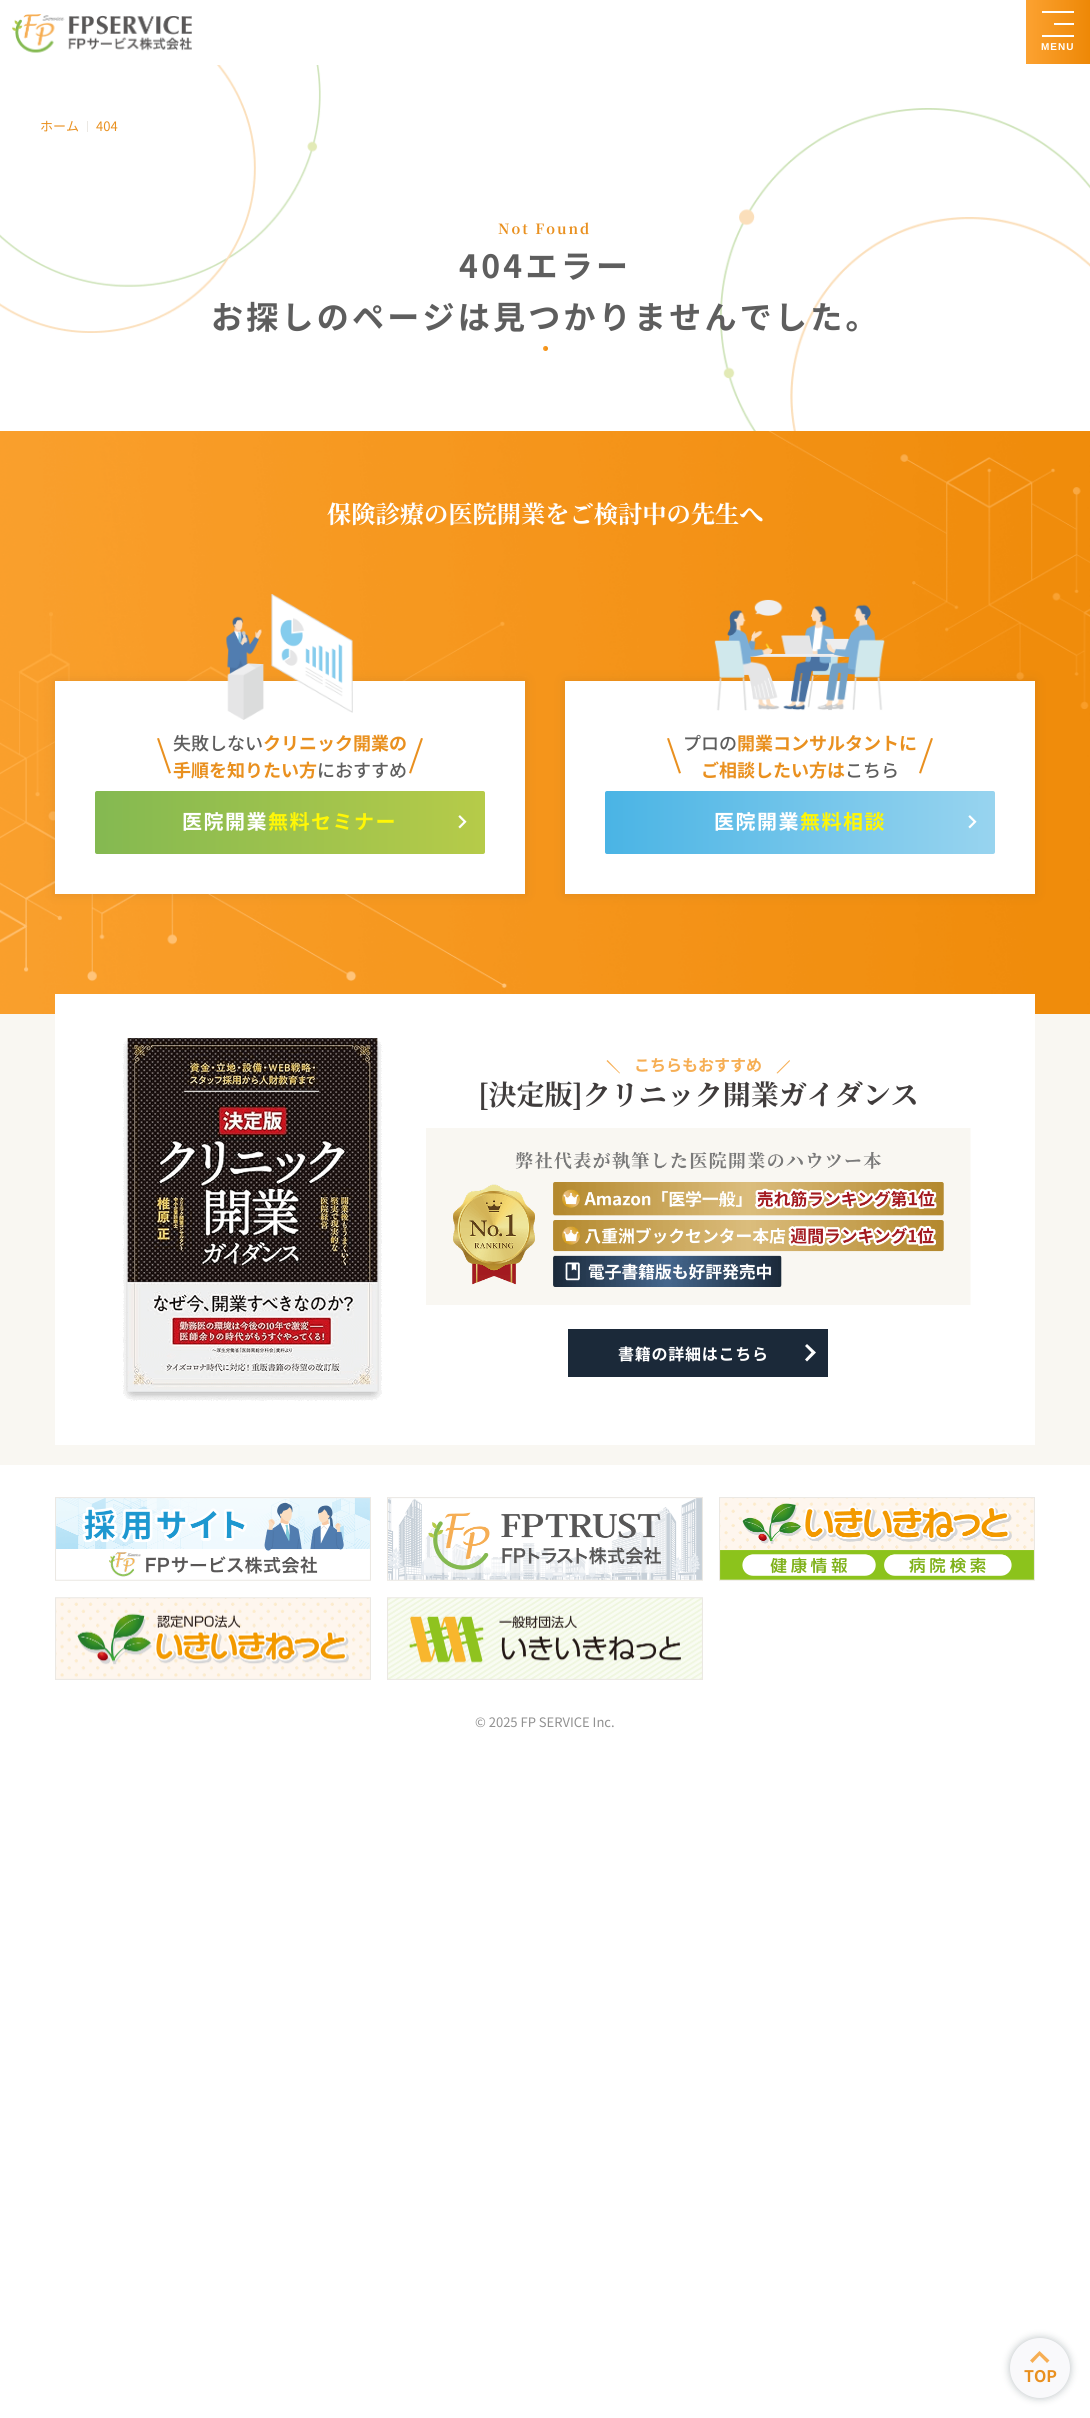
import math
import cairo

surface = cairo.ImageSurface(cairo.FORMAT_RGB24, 1090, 2418)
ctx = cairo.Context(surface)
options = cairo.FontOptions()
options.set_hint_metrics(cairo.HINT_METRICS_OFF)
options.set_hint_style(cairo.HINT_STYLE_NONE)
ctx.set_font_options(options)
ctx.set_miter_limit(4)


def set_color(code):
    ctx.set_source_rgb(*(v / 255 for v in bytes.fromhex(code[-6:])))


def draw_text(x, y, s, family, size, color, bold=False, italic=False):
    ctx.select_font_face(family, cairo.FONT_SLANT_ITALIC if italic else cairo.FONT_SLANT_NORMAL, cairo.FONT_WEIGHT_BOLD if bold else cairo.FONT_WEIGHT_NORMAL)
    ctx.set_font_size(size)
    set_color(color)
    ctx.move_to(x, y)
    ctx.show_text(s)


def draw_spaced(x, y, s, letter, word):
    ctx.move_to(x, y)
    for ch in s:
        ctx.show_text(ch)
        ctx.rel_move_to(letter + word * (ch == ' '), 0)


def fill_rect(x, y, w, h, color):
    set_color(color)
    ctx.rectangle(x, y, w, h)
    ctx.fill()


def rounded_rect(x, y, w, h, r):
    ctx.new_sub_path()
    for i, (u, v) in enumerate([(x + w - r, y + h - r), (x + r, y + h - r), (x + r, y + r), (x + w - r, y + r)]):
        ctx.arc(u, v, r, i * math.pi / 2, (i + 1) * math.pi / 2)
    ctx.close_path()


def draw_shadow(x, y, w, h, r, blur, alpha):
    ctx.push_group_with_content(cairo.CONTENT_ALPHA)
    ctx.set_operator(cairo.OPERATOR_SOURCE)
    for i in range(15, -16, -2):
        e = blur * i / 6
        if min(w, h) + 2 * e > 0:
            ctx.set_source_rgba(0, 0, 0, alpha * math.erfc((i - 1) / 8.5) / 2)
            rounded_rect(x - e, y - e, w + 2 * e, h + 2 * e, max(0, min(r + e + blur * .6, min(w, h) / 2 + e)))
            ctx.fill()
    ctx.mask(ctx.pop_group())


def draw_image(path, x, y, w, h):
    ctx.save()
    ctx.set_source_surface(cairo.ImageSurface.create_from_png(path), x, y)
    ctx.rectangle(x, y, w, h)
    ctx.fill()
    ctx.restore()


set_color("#ffffff")
ctx.paint()
draw_image("assets/img1.png", 12, 14, 180, 39)
gradient = cairo.LinearGradient(1090, 32, 1026, 32)
gradient.add_color_stop_rgba(0, 0.933, 0.533, 0.024, 1)
gradient.add_color_stop_rgba(1, 0.988, 0.635, 0.192, 1)
ctx.set_source(gradient)
ctx.rectangle(1026, 0, 64, 64)
ctx.fill()
fill_rect(1042, 11, 32, 2, "#ffffff")
fill_rect(1054, 23, 20, 2, "#ffffff")
fill_rect(1042, 35, 32, 2, "#ffffff")
ctx.select_font_face("Liberation Sans", cairo.FONT_SLANT_NORMAL, cairo.FONT_WEIGHT_BOLD)
ctx.set_font_size(10)
draw_spaced(1041, 50, "MENU", 1, 0)
draw_image("assets/img2.png", 0, 65, 321, 268)
draw_image("assets/img3.png", 720, 108, 370, 323)
draw_text(40, 131, "ホーム", "Noto Sans JP", 13, "#e9901f")
fill_rect(87, 121, 1, 11, "#ebe8e3")
draw_text(96, 131, "404", "Noto Sans JP", 13, "#e9901f")
ctx.select_font_face("Noto Serif JP", cairo.FONT_SLANT_NORMAL, cairo.FONT_WEIGHT_BOLD)
ctx.set_font_size(14)
draw_spaced(498, 234, "Not Found", 2, 0)
ctx.select_font_face("Noto Sans JP", cairo.FONT_SLANT_NORMAL, cairo.FONT_WEIGHT_BOLD)
ctx.set_font_size(32)
set_color("#5e5e5e")
draw_spaced(459, 278, "404エラー", 3.25, 0)
draw_spaced(211, 329, "お探しのページは見つかりませんでした。", 3.25, 0)
gradient = cairo.LinearGradient(548, 349, 543, 349)
gradient.add_color_stop_rgba(0, 0.933, 0.533, 0.024, 1)
gradient.add_color_stop_rgba(1, 0.988, 0.635, 0.192, 1)
ctx.set_source(gradient)
ctx.new_path()
ctx.arc(545.5, 348.5, 2.5, 0, 2 * math.pi)
ctx.fill()
draw_image("assets/img4.png", 0, 431, 1090, 583)
draw_text(327, 523, "保険診療の医院開業をご検討中の先生へ", "Noto Serif JP", 24.25, "#ffffff", bold=True)
set_color("#25252f")
draw_shadow(55, 681, 470, 213, 0, 6, 0.1)
fill_rect(55, 681, 470, 213, "#ffffff")
draw_image("assets/img5.png", 226, 594, 127, 126)
set_color("#e9901f")
ctx.new_path()
ctx.move_to(157, 738.5)
ctx.line_to(159, 738)
ctx.line_to(171, 773)
ctx.line_to(169, 773.5)
ctx.close_path()
ctx.fill()
draw_text(173, 750, "失敗しない", "Noto Sans JP Medium", 18, "#5e5e5e")
draw_text(263, 750, "クリニック開業の", "Noto Sans JP", 18, "#e9901f", bold=True)
draw_text(173, 777, "手順を知りたい方", "Noto Sans JP", 18, "#e9901f", bold=True)
draw_text(317, 777, "におすすめ", "Noto Sans JP Medium", 18, "#5e5e5e")
set_color("#e9901f")
ctx.new_path()
ctx.move_to(421, 738)
ctx.line_to(423, 738.5)
ctx.line_to(411, 773.5)
ctx.line_to(409, 773)
ctx.close_path()
ctx.fill()
gradient = cairo.LinearGradient(95, 823, 485, 823)
gradient.add_color_stop_rgba(0, 0.518, 0.725, 0.318, 1)
gradient.add_color_stop_rgba(1, 0.714, 0.796, 0.286, 1)
ctx.set_source(gradient)
rounded_rect(95, 791, 390, 63, 2)
ctx.fill()
ctx.select_font_face("Noto Sans JP", cairo.FONT_SLANT_NORMAL, cairo.FONT_WEIGHT_BOLD)
ctx.set_font_size(20)
set_color("#ffffff")
draw_spaced(182, 829, "医院開業", 1.5, 0)
set_color("#fff706")
draw_spaced(268, 829, "無料セミナー", 1.5, 0)
draw_image("assets/img6.png", 458, 815, 9, 14)
set_color("#25252f")
draw_shadow(565, 681, 470, 213, 0, 6, 0.1)
fill_rect(565, 681, 470, 213, "#ffffff")
draw_image("assets/img7.png", 714, 599, 171, 112)
set_color("#e9901f")
ctx.new_path()
ctx.move_to(667, 738.5)
ctx.line_to(669, 738)
ctx.line_to(681, 773)
ctx.line_to(679, 773.5)
ctx.close_path()
ctx.fill()
draw_text(683, 750, "プロの", "Noto Sans JP Medium", 18, "#5e5e5e")
draw_text(737, 750, "開業コンサルタントに", "Noto Sans JP", 18, "#e9901f", bold=True)
draw_text(701, 777, "ご相談したい方は", "Noto Sans JP", 18, "#e9901f", bold=True)
draw_text(845, 777, "こちら", "Noto Sans JP Medium", 18, "#5e5e5e")
set_color("#e9901f")
ctx.new_path()
ctx.move_to(931, 738)
ctx.line_to(933, 738.5)
ctx.line_to(921, 773.5)
ctx.line_to(919, 773)
ctx.close_path()
ctx.fill()
gradient = cairo.LinearGradient(995, 823, 605, 823)
gradient.add_color_stop_rgba(0, 0.596, 0.831, 0.937, 1)
gradient.add_color_stop_rgba(1, 0.29, 0.706, 0.898, 1)
ctx.set_source(gradient)
rounded_rect(605, 791, 390, 63, 2)
ctx.fill()
ctx.select_font_face("Noto Sans JP", cairo.FONT_SLANT_NORMAL, cairo.FONT_WEIGHT_BOLD)
ctx.set_font_size(20)
set_color("#ffffff")
draw_spaced(714, 829, "医院開業", 1.5, 0)
set_color("#fff706")
draw_spaced(800, 829, "無料相談", 1.5, 0)
draw_image("assets/img8.png", 968, 815, 9, 14)
fill_rect(0, 1014, 1090, 451, "#f9f7f2")
fill_rect(55, 994, 980, 451, "#ffffff")
draw_image("assets/img9.png", 122, 1038, 261, 363)
set_color("#f6ae54")
ctx.new_path()
ctx.move_to(607.5, 1060)
ctx.line_to(620, 1073)
ctx.line_to(619.5, 1073.5)
ctx.line_to(606.5, 1061)
ctx.close_path()
ctx.fill()
draw_text(634, 1071, "こちらもおすすめ", "Noto Sans JP", 16, "#f6ae54", bold=True)
ctx.new_path()
ctx.move_to(776.5, 1073)
ctx.line_to(789.5, 1060)
ctx.line_to(790, 1061)
ctx.line_to(777.5, 1073.5)
ctx.close_path()
ctx.fill()
draw_text(478, 1105, "[決定版]クリニック開業ガイダンス", "Noto Serif JP", 28, "#403c3c", bold=True)
draw_image("assets/img10.png", 426, 1128, 545, 177)
fill_rect(568, 1329, 260, 48, "#1b2939")
ctx.select_font_face("Noto Sans JP", cairo.FONT_SLANT_NORMAL, cairo.FONT_WEIGHT_BOLD)
ctx.set_font_size(16)
set_color("#ffffff")
draw_spaced(618, 1360, "書籍の詳細はこちら", 0.75, 0)
ctx.new_path()
ctx.move_to(811.5, 1352.5)
ctx.line_to(805, 1346)
ctx.line_to(807, 1344)
ctx.line_to(816, 1352.5)
ctx.line_to(807, 1361.5)
ctx.line_to(805, 1359.5)
ctx.close_path()
ctx.fill()
draw_image("assets/img11.png", 55, 1497, 316, 84)
draw_image("assets/img12.png", 387, 1497, 316, 84)
draw_image("assets/img13.png", 719, 1497, 316, 84)
draw_image("assets/img14.png", 55, 1597, 316, 83)
draw_image("assets/img15.png", 387, 1597, 316, 83)
draw_text(475, 1727, "© 2025 FP SERVICE Inc.", "Noto Sans JP", 13, "#919191")
set_color("#899497")
draw_shadow(1010, 2338, 60, 60, 30, 4, 0.6)
set_color("#f9f9fb")
ctx.arc(1040, 2368, 30, 0, 2 * math.pi)
ctx.fill()
set_color("#f6ae54")
ctx.new_path()
ctx.move_to(1039.5, 2355.5)
ctx.line_to(1032.5, 2363)
ctx.line_to(1030, 2360.5)
ctx.line_to(1039.5, 2351)
ctx.line_to(1049.5, 2360.5)
ctx.line_to(1047, 2363)
ctx.close_path()
ctx.fill()
draw_text(1024, 2382, "TOP", "Noto Sans JP", 16, "#e9901f", bold=True)
surface.write_to_png("output.png")
